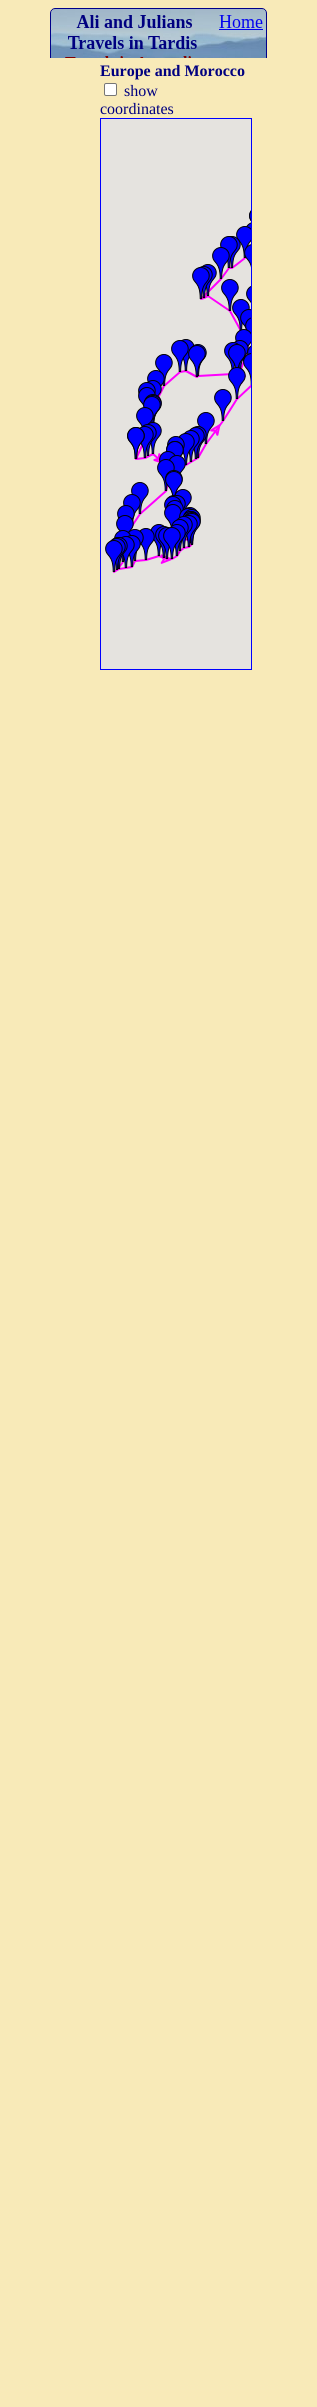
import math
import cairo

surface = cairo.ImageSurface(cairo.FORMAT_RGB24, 317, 2407)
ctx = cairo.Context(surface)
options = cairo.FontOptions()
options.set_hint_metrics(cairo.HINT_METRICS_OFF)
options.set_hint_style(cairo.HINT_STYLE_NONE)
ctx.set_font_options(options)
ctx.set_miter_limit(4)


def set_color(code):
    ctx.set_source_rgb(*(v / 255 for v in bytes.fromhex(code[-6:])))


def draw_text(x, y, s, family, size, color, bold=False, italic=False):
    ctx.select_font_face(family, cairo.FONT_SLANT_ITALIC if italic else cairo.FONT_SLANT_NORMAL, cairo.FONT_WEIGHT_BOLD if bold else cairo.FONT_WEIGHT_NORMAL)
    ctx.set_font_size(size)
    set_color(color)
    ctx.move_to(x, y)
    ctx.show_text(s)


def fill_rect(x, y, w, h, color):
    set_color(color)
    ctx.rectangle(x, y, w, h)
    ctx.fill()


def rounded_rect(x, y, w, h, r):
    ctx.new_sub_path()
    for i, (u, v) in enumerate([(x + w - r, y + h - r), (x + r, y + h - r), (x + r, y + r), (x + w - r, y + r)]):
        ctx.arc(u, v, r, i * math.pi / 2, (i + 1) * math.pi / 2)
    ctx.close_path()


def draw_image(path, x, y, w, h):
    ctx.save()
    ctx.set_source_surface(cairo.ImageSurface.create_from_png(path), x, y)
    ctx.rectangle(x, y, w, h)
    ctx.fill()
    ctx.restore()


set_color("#f8eab8")
ctx.paint()
draw_image("assets/img1.png", 50, 8, 217, 50)
draw_text(100, 76, "Europe and Morocco", "Liberation Serif", 16, "#000080", bold=True)
set_color("#ffffff")
rounded_rect(104.5, 83.5, 12, 12, 1.5)
ctx.fill_preserve()
set_color("#767676")
ctx.set_line_width(1)
ctx.stroke()
draw_text(124, 96, "show", "Liberation Serif", 16, "#000080")
draw_text(100, 114, "coordinates", "Liberation Serif", 16, "#000080")
ctx.rectangle(100.5, 118.5, 151, 551)
set_color("#0000ff")
ctx.stroke()
fill_rect(101, 119, 150, 550, "#e5e3df")
draw_image("assets/img2.png", 249, 210, 2, 11)
draw_image("assets/img3.png", 249, 210, 2, 11)
draw_image("assets/img4.png", 246, 222, 5, 20)
draw_image("assets/img92.png", 237, 255, 14, 146)
draw_image("assets/img6.png", 236, 226, 15, 32)
draw_image("assets/img91.png", 157, 263, 80, 140)
draw_image("assets/img9.png", 228, 236, 13, 32)
draw_image("assets/img5.png", 220, 236, 18, 32)
draw_image("assets/img8.png", 212, 247, 18, 32)
draw_image("assets/img7.png", 200, 264, 17, 32)
draw_image("assets/img10.png", 244, 244, 7, 24)
draw_image("assets/img11.png", 196, 266, 17, 32)
draw_image("assets/img12.png", 192, 267, 18, 32)
draw_image("assets/img13.png", 221, 279, 18, 32)
draw_image("assets/img14.png", 246, 286, 5, 18)
draw_image("assets/img15.png", 232, 299, 18, 32)
draw_image("assets/img16.png", 240, 309, 11, 23)
draw_image("assets/img17.png", 245, 317, 6, 17)
draw_image("assets/img18.png", 180, 339, 15, 32)
draw_image("assets/img19.png", 235, 329, 16, 32)
draw_image("assets/img20.png", 171, 340, 18, 32)
draw_image("assets/img21.png", 233, 340, 16, 30)
draw_image("assets/img22.png", 189, 344, 18, 32)
draw_image("assets/img23.png", 224, 342, 17, 28)
draw_image("assets/img24.png", 188, 345, 18, 32)
draw_image("assets/img25.png", 228, 344, 18, 24)
draw_image("assets/img26.png", 247, 345, 4, 11)
draw_image("assets/img27.png", 155, 354, 18, 32)
draw_image("assets/img29.png", 243, 353, 8, 32)
draw_image("assets/img28.png", 228, 367, 18, 32)
draw_image("assets/img30.png", 147, 370, 18, 27)
draw_image("assets/img31.png", 146, 380, 16, 17)
draw_image("assets/img32.png", 138, 382, 18, 13)
draw_image("assets/img93.png", 113, 403, 123, 170)
draw_image("assets/img33.png", 138, 387, 18, 21)
draw_image("assets/img34.png", 214, 389, 18, 32)
draw_image("assets/img35.png", 144, 394, 18, 29)
draw_image("assets/img36.png", 144, 395, 18, 28)
draw_image("assets/img37.png", 143, 396, 18, 27)
draw_image("assets/img38.png", 136, 407, 18, 20)
draw_image("assets/img39.png", 197, 412, 18, 32)
draw_image("assets/img40.png", 146, 422, 16, 32)
draw_image("assets/img41.png", 140, 424, 17, 32)
draw_image("assets/img43.png", 138, 426, 16, 32)
draw_image("assets/img42.png", 127, 427, 18, 32)
draw_image("assets/img44.png", 190, 426, 17, 32)
draw_image("assets/img45.png", 127, 427, 18, 32)
draw_image("assets/img46.png", 188, 427, 17, 32)
draw_image("assets/img47.png", 183, 430, 17, 32)
draw_image("assets/img49.png", 178, 433, 17, 32)
draw_image("assets/img48.png", 167, 436, 18, 16)
draw_image("assets/img50.png", 166, 441, 18, 16)
draw_image("assets/img51.png", 166, 441, 18, 16)
draw_image("assets/img52.png", 159, 451, 17, 13)
draw_image("assets/img53.png", 168, 455, 18, 32)
draw_image("assets/img54.png", 157, 459, 18, 32)
draw_image("assets/img55.png", 165, 470, 18, 26)
draw_image("assets/img56.png", 131, 482, 18, 32)
draw_image("assets/img57.png", 165, 471, 18, 25)
draw_image("assets/img58.png", 123, 494, 18, 32)
draw_image("assets/img60.png", 174, 489, 18, 22)
draw_image("assets/img59.png", 165, 495, 15, 13)
draw_image("assets/img61.png", 171, 495, 15, 25)
draw_image("assets/img62.png", 164, 496, 18, 31)
draw_image("assets/img63.png", 166, 500, 18, 20)
draw_image("assets/img64.png", 117, 505, 18, 16)
draw_image("assets/img65.png", 164, 504, 18, 24)
draw_image("assets/img66.png", 181, 507, 18, 32)
draw_image("assets/img67.png", 179, 508, 16, 32)
draw_image("assets/img68.png", 183, 509, 18, 32)
draw_image("assets/img69.png", 182, 511, 18, 32)
draw_image("assets/img70.png", 182, 511, 18, 32)
draw_image("assets/img71.png", 184, 512, 17, 32)
draw_image("assets/img72.png", 116, 515, 18, 18)
draw_image("assets/img73.png", 184, 513, 17, 32)
draw_image("assets/img74.png", 183, 515, 15, 32)
draw_image("assets/img75.png", 175, 516, 18, 32)
draw_image("assets/img76.png", 150, 524, 17, 32)
draw_image("assets/img77.png", 171, 519, 18, 32)
draw_image("assets/img79.png", 169, 524, 17, 32)
draw_image("assets/img78.png", 155, 526, 15, 32)
draw_image("assets/img80.png", 158, 527, 13, 32)
draw_image("assets/img83.png", 139, 528, 16, 32)
draw_image("assets/img82.png", 127, 529, 17, 32)
draw_image("assets/img81.png", 114, 530, 18, 32)
draw_image("assets/img84.png", 163, 527, 18, 32)
draw_image("assets/img85.png", 126, 535, 15, 32)
draw_image("assets/img87.png", 120, 536, 15, 32)
draw_image("assets/img86.png", 109, 537, 18, 32)
draw_image("assets/img88.png", 111, 537, 17, 32)
draw_image("assets/img89.png", 109, 538, 17, 32)
draw_image("assets/img90.png", 105, 540, 18, 32)
surface.write_to_png("output.png")
